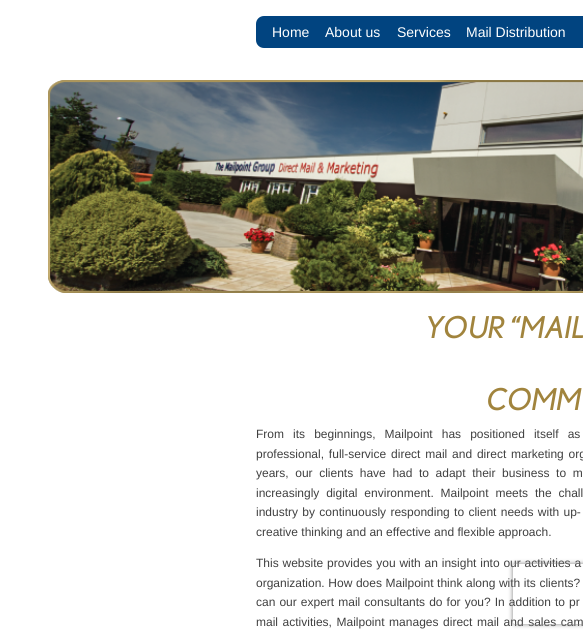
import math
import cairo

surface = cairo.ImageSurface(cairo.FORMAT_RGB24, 583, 638)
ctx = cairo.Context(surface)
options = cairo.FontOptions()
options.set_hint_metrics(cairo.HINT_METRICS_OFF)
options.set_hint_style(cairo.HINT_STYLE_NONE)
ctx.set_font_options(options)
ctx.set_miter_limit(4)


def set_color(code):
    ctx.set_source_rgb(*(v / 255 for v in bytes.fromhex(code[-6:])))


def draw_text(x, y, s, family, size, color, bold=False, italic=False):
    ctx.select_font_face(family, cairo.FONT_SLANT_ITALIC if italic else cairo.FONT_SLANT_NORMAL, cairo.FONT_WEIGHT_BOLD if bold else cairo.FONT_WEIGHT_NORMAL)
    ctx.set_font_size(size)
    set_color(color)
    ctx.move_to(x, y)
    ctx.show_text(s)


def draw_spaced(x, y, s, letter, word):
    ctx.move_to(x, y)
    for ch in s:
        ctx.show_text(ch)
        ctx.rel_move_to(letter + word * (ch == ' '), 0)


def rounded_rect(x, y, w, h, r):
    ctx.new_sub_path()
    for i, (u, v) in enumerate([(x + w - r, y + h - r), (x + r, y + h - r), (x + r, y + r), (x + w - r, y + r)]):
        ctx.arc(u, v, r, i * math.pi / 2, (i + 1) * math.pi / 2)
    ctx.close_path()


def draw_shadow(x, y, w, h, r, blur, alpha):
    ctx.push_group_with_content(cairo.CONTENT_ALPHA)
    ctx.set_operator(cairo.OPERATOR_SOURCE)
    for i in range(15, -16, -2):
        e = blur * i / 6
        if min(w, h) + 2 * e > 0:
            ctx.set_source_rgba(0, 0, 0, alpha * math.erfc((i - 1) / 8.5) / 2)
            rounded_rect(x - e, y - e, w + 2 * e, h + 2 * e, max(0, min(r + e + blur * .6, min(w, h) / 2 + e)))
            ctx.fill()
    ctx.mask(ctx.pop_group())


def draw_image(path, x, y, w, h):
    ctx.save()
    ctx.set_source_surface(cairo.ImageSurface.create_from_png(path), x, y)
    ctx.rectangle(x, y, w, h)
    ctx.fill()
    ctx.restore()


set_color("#ffffff")
ctx.paint()
set_color("#014480")
ctx.new_path()
ctx.move_to(264, 16)
ctx.line_to(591, 16)
ctx.line_to(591, 48)
ctx.line_to(264, 48)
ctx.curve_to(259.5, 48, 256, 44.5, 256, 40)
ctx.line_to(256, 24)
ctx.curve_to(256, 19.5, 259.5, 16, 264, 16)
ctx.close_path()
ctx.fill()
draw_text(272, 37, "Home", "Liberation Sans", 14, "#ffffff")
draw_text(325, 37, "About us", "Liberation Sans", 14, "#ffffff")
draw_text(397, 37, "Services", "Liberation Sans", 14, "#ffffff")
draw_text(466, 37, "Mail Distribution", "Liberation Sans", 14, "#ffffff")
draw_image("assets/img1.png", 48, 80, 535, 213)
draw_text(426, 338, "YOUR “MAIL", "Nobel", 30, "#a1843d", italic=True)
draw_text(487, 410, "COMM", "Nobel", 30, "#a1843d", italic=True)
ctx.select_font_face("Liberation Sans")
ctx.set_font_size(12)
set_color("#404040")
draw_spaced(256, 438, "From its beginnings, Mailpoint has positioned itself as", 0, 5.75)
draw_spaced(256, 458, "professional, full-service direct mail and direct marketing org", 0, 1.5)
draw_spaced(256, 477, "years, our clients have had to adapt their business to m", 0, 3.25)
draw_spaced(256, 497, "increasingly digital environment. Mailpoint meets the chall", 0, 3.5)
draw_spaced(256, 516, "industry by continuously responding to client needs with up-", 0, 1)
draw_text(256, 536, "creative thinking and an effective and flexible approach.", "Liberation Sans", 12, "#404040")
draw_spaced(256, 567, "This website provides you with an insight into our activities a", 0, 0.5)
draw_spaced(256, 587, "organization. How does Mailpoint think along with its clients?", 0, 0.25)
draw_spaced(256, 606, "can our expert mail consultants do for you? In addition to pr", 0, 0.75)
draw_spaced(256, 626, "mail activities, Mailpoint manages direct mail and sales cam", 0, 1.25)
ctx.save()
ctx.set_fill_rule(cairo.FILL_RULE_EVEN_ODD)
ctx.new_path()
ctx.move_to(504, 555)
ctx.line_to(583, 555)
ctx.line_to(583, 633)
ctx.line_to(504, 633)
ctx.close_path()
ctx.move_to(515, 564)
ctx.line_to(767, 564)
ctx.curve_to(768, 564, 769, 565, 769, 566)
ctx.line_to(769, 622)
ctx.curve_to(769, 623, 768, 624, 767, 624)
ctx.line_to(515, 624)
ctx.curve_to(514, 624, 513, 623, 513, 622)
ctx.line_to(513, 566)
ctx.curve_to(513, 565, 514, 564, 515, 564)
ctx.close_path()
ctx.clip()
set_color("#808080")
draw_shadow(513, 564, 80, 60, 2, 2.5, 1)
ctx.restore()
surface.write_to_png("output.png")
